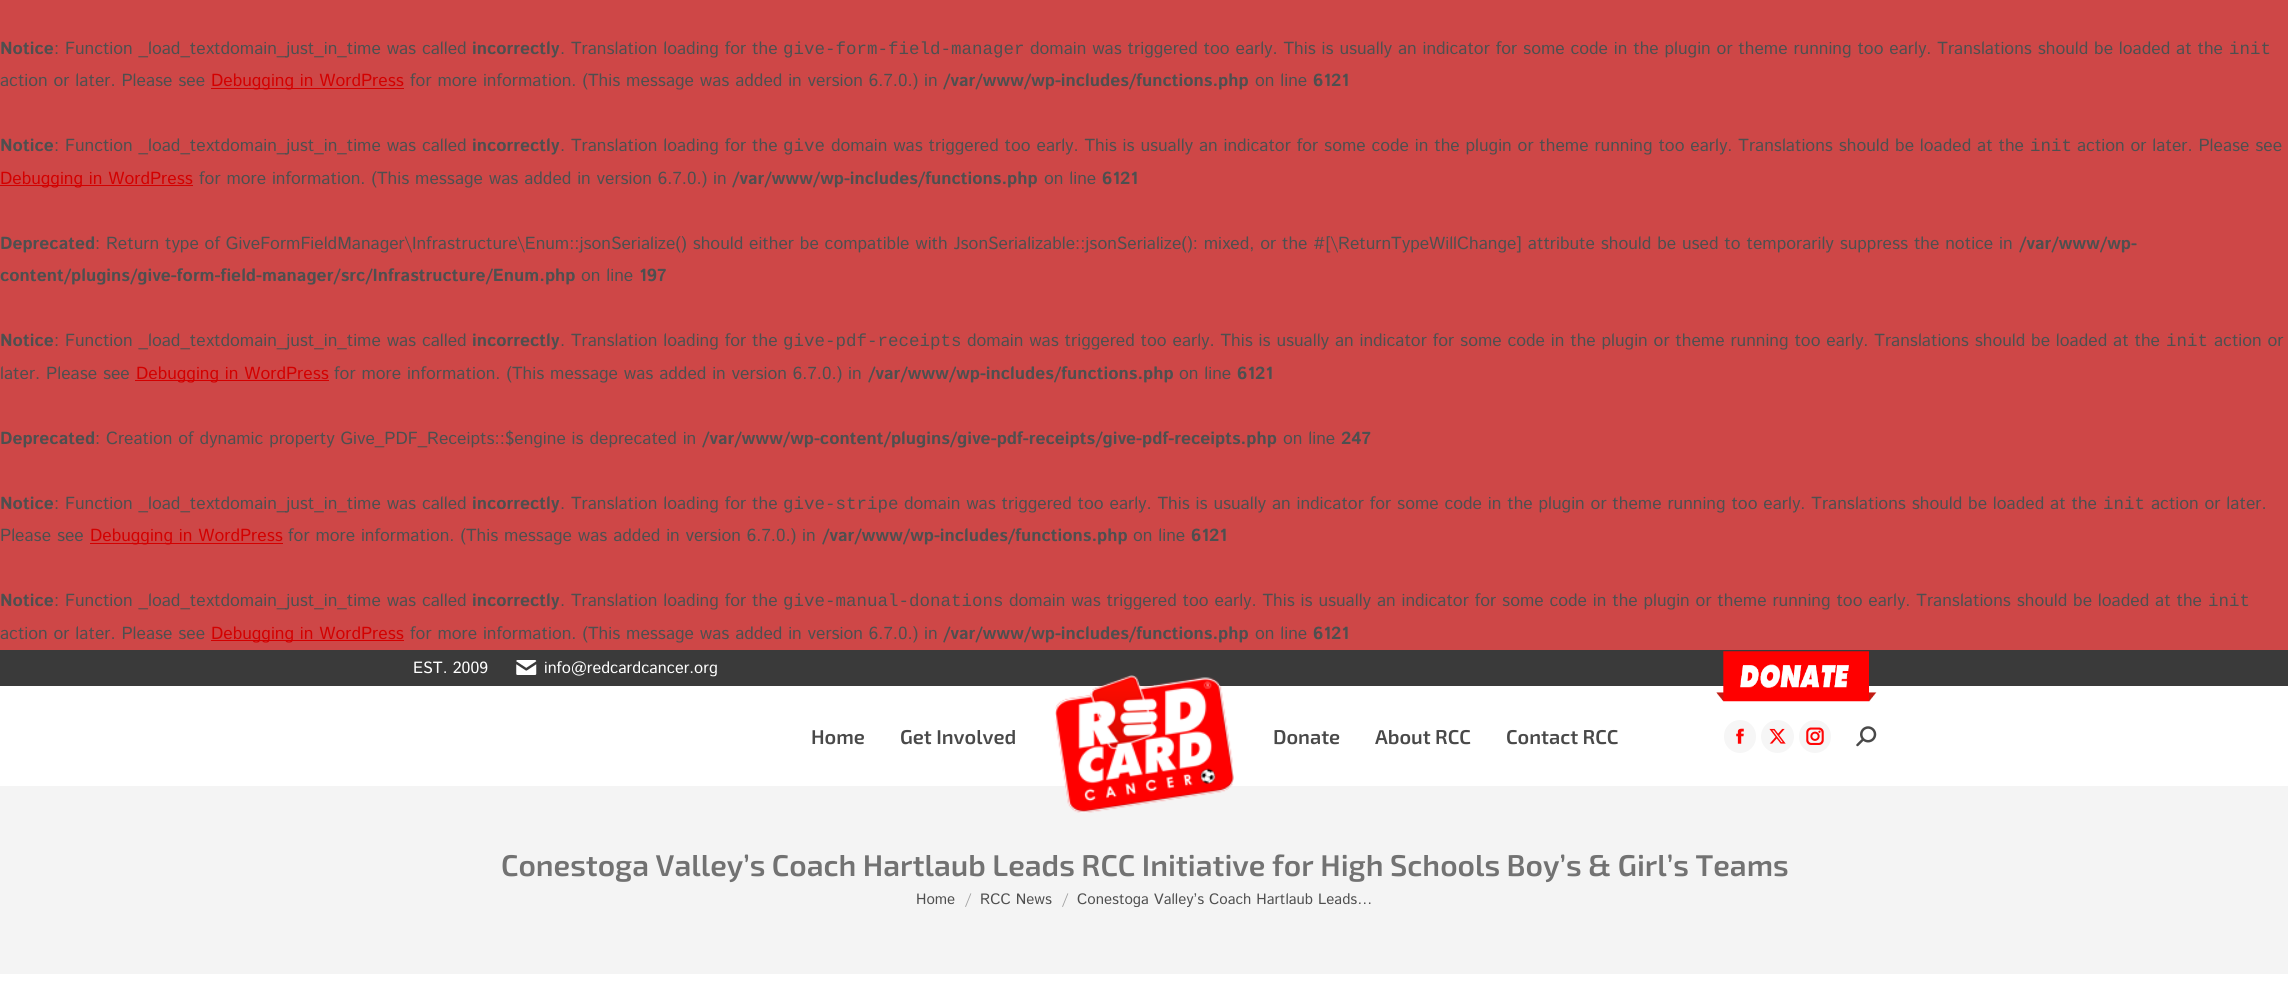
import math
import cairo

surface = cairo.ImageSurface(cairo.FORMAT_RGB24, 2288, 995)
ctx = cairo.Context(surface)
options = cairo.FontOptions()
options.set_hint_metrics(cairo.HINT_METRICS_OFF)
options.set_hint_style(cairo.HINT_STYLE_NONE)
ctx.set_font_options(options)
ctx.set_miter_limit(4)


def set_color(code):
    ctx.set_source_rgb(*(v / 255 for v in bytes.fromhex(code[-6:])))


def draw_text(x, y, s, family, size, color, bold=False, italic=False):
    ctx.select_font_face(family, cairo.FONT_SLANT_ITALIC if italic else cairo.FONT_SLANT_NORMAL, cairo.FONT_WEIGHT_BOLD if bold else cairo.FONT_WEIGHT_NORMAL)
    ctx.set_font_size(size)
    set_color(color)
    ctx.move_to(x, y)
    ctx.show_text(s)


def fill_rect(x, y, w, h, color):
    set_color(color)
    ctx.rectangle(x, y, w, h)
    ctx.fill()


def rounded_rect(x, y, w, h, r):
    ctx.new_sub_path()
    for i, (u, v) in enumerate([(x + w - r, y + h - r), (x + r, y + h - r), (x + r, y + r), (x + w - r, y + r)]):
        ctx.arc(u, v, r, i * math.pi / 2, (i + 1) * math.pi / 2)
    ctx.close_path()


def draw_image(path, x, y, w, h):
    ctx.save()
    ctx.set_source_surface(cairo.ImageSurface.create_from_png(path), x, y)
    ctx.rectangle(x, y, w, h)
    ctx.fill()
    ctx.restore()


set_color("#ce4747")
ctx.paint()
draw_text(0, 54, "Notice", "Istok Web", 17.5, "#4f4f4f", bold=True)
draw_text(54, 54, ": Function _load_textdomain_just_in_time was called", "Istok Web", 17.5, "#4f4f4f")
draw_text(472, 54, "incorrectly", "Istok Web", 17.5, "#4f4f4f", bold=True)
draw_text(560, 54, ". Translation loading for the", "Istok Web", 17.5, "#4f4f4f")
draw_text(783, 54, "give-form-field-manager", "Liberation Mono", 17.5, "#4f4f4f")
draw_text(1030, 54, "domain was triggered too early. This is usually an indicator for some code in the plugin or theme running too early. Translations should be loaded at the", "Istok Web", 17.5, "#4f4f4f")
draw_text(2229, 54, "init", "Liberation Mono", 17.5, "#4f4f4f")
draw_text(0, 86, "action or later. Please see", "Istok Web", 17.5, "#4f4f4f")
fill_rect(211, 88, 193, 1, "#d30000")
draw_text(211, 86, "Debugging in WordPress", "Istok Web", 17.5, "#d30000")
draw_text(410, 86, "for more information. (This message was added in version 6.7.0.) in", "Istok Web", 17.5, "#4f4f4f")
draw_text(943, 86, "/var/www/wp-includes/functions.php", "Istok Web", 17.5, "#4f4f4f", bold=True)
draw_text(1255, 86, "on line", "Istok Web", 17.5, "#4f4f4f")
draw_text(1313, 86, "6121", "Istok Web", 17.5, "#4f4f4f", bold=True)
draw_text(0, 151, "Notice", "Istok Web", 17.5, "#4f4f4f", bold=True)
draw_text(54, 151, ": Function _load_textdomain_just_in_time was called", "Istok Web", 17.5, "#4f4f4f")
draw_text(472, 151, "incorrectly", "Istok Web", 17.5, "#4f4f4f", bold=True)
draw_text(560, 151, ". Translation loading for the", "Istok Web", 17.5, "#4f4f4f")
draw_text(783, 151, "give", "Liberation Mono", 17.5, "#4f4f4f")
draw_text(831, 151, "domain was triggered too early. This is usually an indicator for some code in the plugin or theme running too early. Translations should be loaded at the", "Istok Web", 17.5, "#4f4f4f")
draw_text(2030, 151, "init", "Liberation Mono", 17.5, "#4f4f4f")
draw_text(2077, 151, "action or later. Please see", "Istok Web", 17.5, "#4f4f4f")
fill_rect(0, 185, 193, 1, "#d30000")
draw_text(0, 184, "Debugging in WordPress", "Istok Web", 17.5, "#d30000")
draw_text(199, 184, "for more information. (This message was added in version 6.7.0.) in", "Istok Web", 17.5, "#4f4f4f")
draw_text(732, 184, "/var/www/wp-includes/functions.php", "Istok Web", 17.5, "#4f4f4f", bold=True)
draw_text(1044, 184, "on line", "Istok Web", 17.5, "#4f4f4f")
draw_text(1102, 184, "6121", "Istok Web", 17.5, "#4f4f4f", bold=True)
draw_text(0, 249, "Deprecated", "Istok Web", 17.5, "#4f4f4f", bold=True)
draw_text(95, 249, ": Return type of GiveFormFieldManager\\Infrastructure\\Enum::jsonSerialize() should either be compatible with JsonSerializable::jsonSerialize(): mixed, or the #[\\ReturnTypeWillChange] attribute should be used to temporarily suppress the notice in", "Istok Web", 17.5, "#4f4f4f")
draw_text(2019, 249, "/var/www/wp-", "Istok Web", 17.5, "#4f4f4f", bold=True)
draw_text(0, 281, "content/plugins/give-form-field-manager/src/Infrastructure/Enum.php", "Istok Web", 17.5, "#4f4f4f", bold=True)
draw_text(581, 281, "on line", "Istok Web", 17.5, "#4f4f4f")
draw_text(639, 281, "197", "Istok Web", 17.5, "#4f4f4f", bold=True)
draw_text(0, 346, "Notice", "Istok Web", 17.5, "#4f4f4f", bold=True)
draw_text(54, 346, ": Function _load_textdomain_just_in_time was called", "Istok Web", 17.5, "#4f4f4f")
draw_text(472, 346, "incorrectly", "Istok Web", 17.5, "#4f4f4f", bold=True)
draw_text(560, 346, ". Translation loading for the", "Istok Web", 17.5, "#4f4f4f")
draw_text(783, 346, "give-pdf-receipts", "Liberation Mono", 17.5, "#4f4f4f")
draw_text(967, 346, "domain was triggered too early. This is usually an indicator for some code in the plugin or theme running too early. Translations should be loaded at the", "Istok Web", 17.5, "#4f4f4f")
draw_text(2166, 346, "init", "Liberation Mono", 17.5, "#4f4f4f")
draw_text(2214, 346, "action or", "Istok Web", 17.5, "#4f4f4f")
draw_text(0, 379, "later. Please see", "Istok Web", 17.5, "#4f4f4f")
fill_rect(135, 380, 194, 1, "#d30000")
draw_text(136, 379, "Debugging in WordPress", "Istok Web", 17.5, "#d30000")
draw_text(334, 379, "for more information. (This message was added in version 6.7.0.) in", "Istok Web", 17.5, "#4f4f4f")
draw_text(868, 379, "/var/www/wp-includes/functions.php", "Istok Web", 17.5, "#4f4f4f", bold=True)
draw_text(1179, 379, "on line", "Istok Web", 17.5, "#4f4f4f")
draw_text(1237, 379, "6121", "Istok Web", 17.5, "#4f4f4f", bold=True)
draw_text(0, 444, "Deprecated", "Istok Web", 17.5, "#4f4f4f", bold=True)
draw_text(95, 444, ": Creation of dynamic property Give_PDF_Receipts::$engine is deprecated in", "Istok Web", 17.5, "#4f4f4f")
draw_text(702, 444, "/var/www/wp-content/plugins/give-pdf-receipts/give-pdf-receipts.php", "Istok Web", 17.5, "#4f4f4f", bold=True)
draw_text(1283, 444, "on line", "Istok Web", 17.5, "#4f4f4f")
draw_text(1341, 444, "247", "Istok Web", 17.5, "#4f4f4f", bold=True)
draw_text(0, 509, "Notice", "Istok Web", 17.5, "#4f4f4f", bold=True)
draw_text(54, 509, ": Function _load_textdomain_just_in_time was called", "Istok Web", 17.5, "#4f4f4f")
draw_text(472, 509, "incorrectly", "Istok Web", 17.5, "#4f4f4f", bold=True)
draw_text(560, 509, ". Translation loading for the", "Istok Web", 17.5, "#4f4f4f")
draw_text(783, 509, "give-stripe", "Liberation Mono", 17.5, "#4f4f4f")
draw_text(904, 509, "domain was triggered too early. This is usually an indicator for some code in the plugin or theme running too early. Translations should be loaded at the", "Istok Web", 17.5, "#4f4f4f")
draw_text(2103, 509, "init", "Liberation Mono", 17.5, "#4f4f4f")
draw_text(2151, 509, "action or later.", "Istok Web", 17.5, "#4f4f4f")
draw_text(0, 541, "Please see", "Istok Web", 17.5, "#4f4f4f")
fill_rect(90, 543, 193, 1, "#d30000")
draw_text(90, 541, "Debugging in WordPress", "Istok Web", 17.5, "#d30000")
draw_text(288, 541, "for more information. (This message was added in version 6.7.0.) in", "Istok Web", 17.5, "#4f4f4f")
draw_text(822, 541, "/var/www/wp-includes/functions.php", "Istok Web", 17.5, "#4f4f4f", bold=True)
draw_text(1133, 541, "on line", "Istok Web", 17.5, "#4f4f4f")
draw_text(1191, 541, "6121", "Istok Web", 17.5, "#4f4f4f", bold=True)
draw_text(0, 606, "Notice", "Istok Web", 17.5, "#4f4f4f", bold=True)
draw_text(54, 606, ": Function _load_textdomain_just_in_time was called", "Istok Web", 17.5, "#4f4f4f")
draw_text(472, 606, "incorrectly", "Istok Web", 17.5, "#4f4f4f", bold=True)
draw_text(560, 606, ". Translation loading for the", "Istok Web", 17.5, "#4f4f4f")
draw_text(783, 606, "give-manual-donations", "Liberation Mono", 17.5, "#4f4f4f")
draw_text(1009, 606, "domain was triggered too early. This is usually an indicator for some code in the plugin or theme running too early. Translations should be loaded at the", "Istok Web", 17.5, "#4f4f4f")
draw_text(2208, 606, "init", "Liberation Mono", 17.5, "#4f4f4f")
draw_text(0, 639, "action or later. Please see", "Istok Web", 17.5, "#4f4f4f")
fill_rect(211, 640, 193, 1, "#d30000")
draw_text(211, 639, "Debugging in WordPress", "Istok Web", 17.5, "#d30000")
draw_text(410, 639, "for more information. (This message was added in version 6.7.0.) in", "Istok Web", 17.5, "#4f4f4f")
draw_text(943, 639, "/var/www/wp-includes/functions.php", "Istok Web", 17.5, "#4f4f4f", bold=True)
draw_text(1255, 639, "on line", "Istok Web", 17.5, "#4f4f4f")
draw_text(1313, 639, "6121", "Istok Web", 17.5, "#4f4f4f", bold=True)
fill_rect(0, 686, 2288, 309, "#ffffff")
fill_rect(0, 650, 2288, 36, "#3a3a3a")
draw_text(413, 673, "EST. 2009", "Istok Web", 16.25, "#ffffff")
draw_image("assets/img1.png", 516, 660, 21, 15)
draw_text(544, 673, "info@redcardcancer.org", "Istok Web", 16.25, "#ffffff")
draw_image("assets/img2.png", 1716, 651, 161, 51)
draw_text(811, 744, "Home", "Exo 2 SemiBold", 20, "#494949")
draw_text(900, 744, "Get Involved", "Exo 2 SemiBold", 20, "#494949")
fill_rect(0, 786, 2288, 188, "#f4f4f4")
draw_image("assets/img3.png", 1055, 675, 179, 138)
draw_text(1273, 744, "Donate", "Exo 2 SemiBold", 20, "#494949")
draw_text(1375, 744, "About RCC", "Exo 2 SemiBold", 20, "#494949")
draw_text(1506, 744, "Contact RCC", "Exo 2 SemiBold", 20, "#494949")
set_color("#f6f6f6")
rounded_rect(1724, 720, 32, 33, 16)
ctx.fill()
draw_image("assets/img4.png", 1736, 728, 8, 16)
ctx.arc(1777.5, 736.5, 16.5, 0, 2 * math.pi)
ctx.fill()
draw_image("assets/img5.png", 1769, 728, 17, 16)
rounded_rect(1799, 720, 32, 33, 16)
ctx.fill()
draw_image("assets/img6.png", 1806, 727, 18, 18)
draw_image("assets/img7.png", 1856, 726, 21, 21)
draw_text(501, 876, "Conestoga Valley’s Coach Hartlaub Leads RCC Initiative for High Schools Boy’s & Girl’s Teams", "Exo 2 SemiBold", 30, "#727272")
draw_text(916, 904, "Home", "Istok Web", 15, "#4f4f4f")
draw_text(965, 904, "/", "Istok Web", 15, "#a2a2a2")
draw_text(980, 904, "RCC News", "Istok Web", 15, "#4f4f4f")
draw_text(1062, 904, "/", "Istok Web", 15, "#a2a2a2")
draw_text(1077, 904, "Conestoga Valley’s Coach Hartlaub Leads…", "Istok Web", 15, "#4f4f4f")
surface.write_to_png("output.png")
